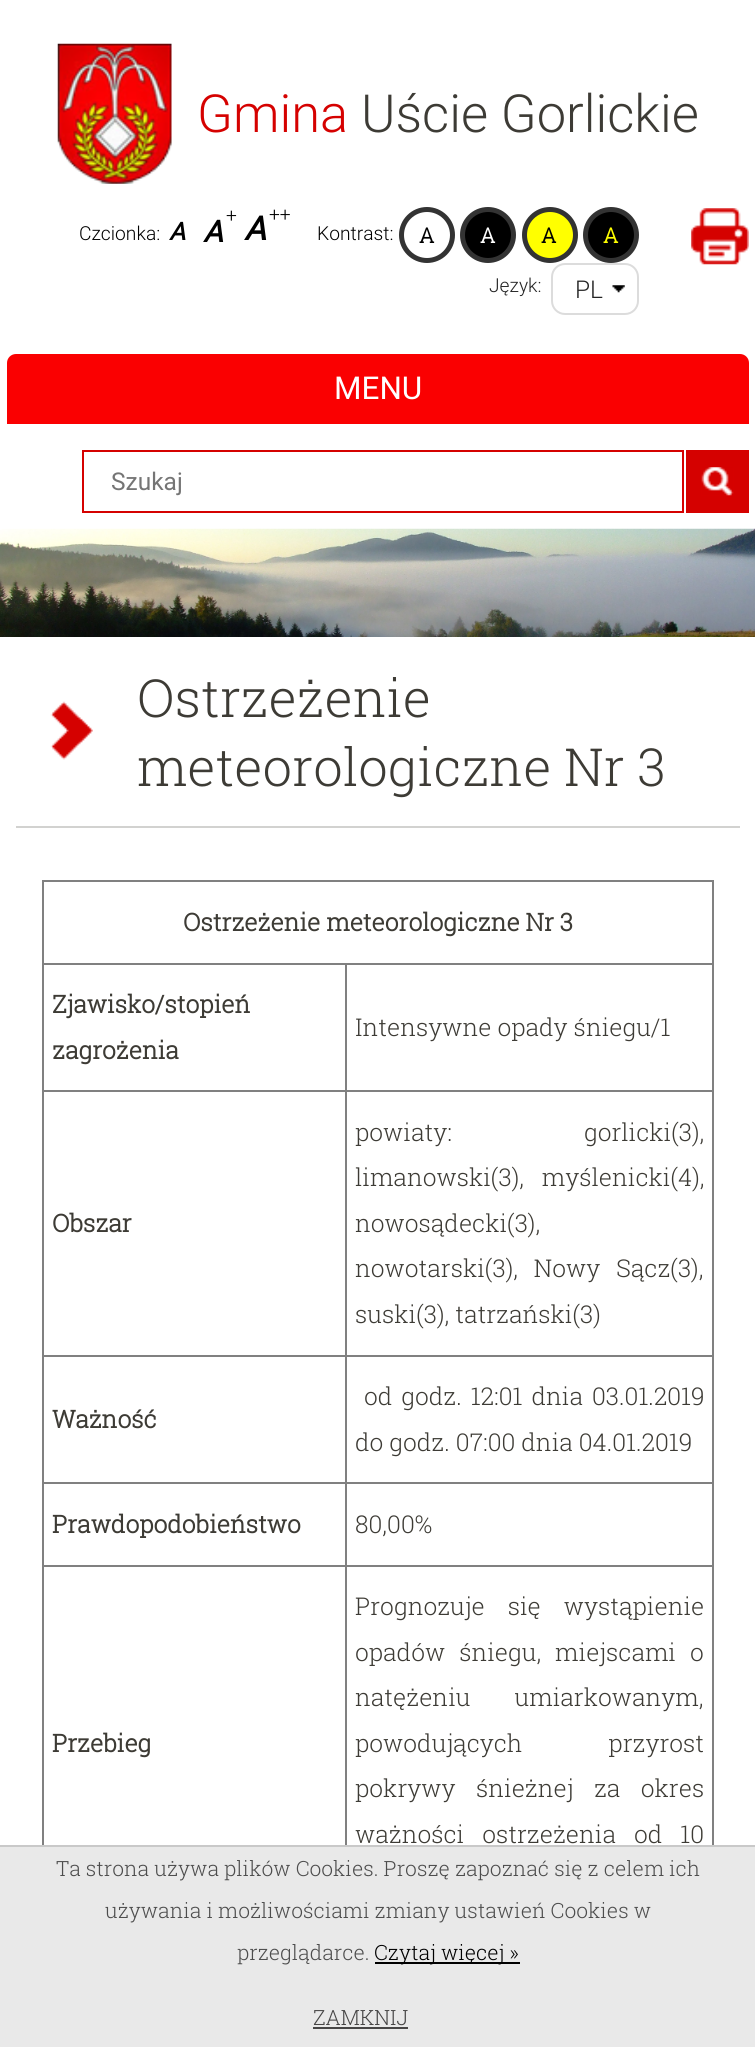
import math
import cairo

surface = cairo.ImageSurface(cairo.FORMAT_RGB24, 755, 2047)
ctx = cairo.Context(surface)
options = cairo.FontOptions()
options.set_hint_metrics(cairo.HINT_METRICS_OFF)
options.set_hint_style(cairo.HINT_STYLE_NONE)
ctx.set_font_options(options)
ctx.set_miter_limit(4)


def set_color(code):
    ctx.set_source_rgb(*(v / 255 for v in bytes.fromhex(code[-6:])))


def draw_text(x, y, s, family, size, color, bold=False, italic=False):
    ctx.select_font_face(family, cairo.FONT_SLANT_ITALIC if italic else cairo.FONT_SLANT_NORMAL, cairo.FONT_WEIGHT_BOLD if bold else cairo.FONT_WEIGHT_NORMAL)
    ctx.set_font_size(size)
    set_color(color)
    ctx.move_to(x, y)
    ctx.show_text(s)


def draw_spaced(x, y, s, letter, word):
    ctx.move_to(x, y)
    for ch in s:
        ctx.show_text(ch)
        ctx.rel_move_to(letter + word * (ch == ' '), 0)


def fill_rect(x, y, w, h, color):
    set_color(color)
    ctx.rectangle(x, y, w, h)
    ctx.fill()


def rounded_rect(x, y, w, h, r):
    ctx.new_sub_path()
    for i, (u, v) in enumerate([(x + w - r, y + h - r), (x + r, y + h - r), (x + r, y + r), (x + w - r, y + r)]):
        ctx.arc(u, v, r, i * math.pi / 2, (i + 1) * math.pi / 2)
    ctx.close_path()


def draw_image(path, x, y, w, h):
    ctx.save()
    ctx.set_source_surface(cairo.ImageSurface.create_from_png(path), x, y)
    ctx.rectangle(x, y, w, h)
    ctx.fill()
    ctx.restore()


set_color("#ffffff")
ctx.paint()
draw_image("assets/img1.png", 57, 43, 115, 141)
draw_text(197, 132, "Gmina", "Roboto Light", 52.5, "#d50100")
draw_text(361, 132, "Uście Gorlickie", "Roboto Light", 52.5, "#3d3b35")
draw_text(79, 240, "Czcionka:", "Roboto Light", 19.25, "#000000")
draw_text(169, 240, "A", "Roboto", 24.5, "#000000", bold=True, italic=True)
draw_text(226, 222, "+", "Roboto Light", 19.25, "#000000")
draw_text(203, 242, "A", "Roboto", 30, "#000000", bold=True, italic=True)
draw_text(269, 221, "++", "Roboto Light", 19.25, "#000000")
draw_text(244, 240, "A", "Roboto", 33, "#000000", bold=True, italic=True)
draw_text(317, 240, "Kontrast:", "Roboto Light", 19.25, "#000000")
ctx.new_path()
ctx.arc(427, 235, 25.5, 0, 2 * math.pi)
set_color("#333333")
ctx.set_line_width(5)
ctx.stroke()
draw_text(419, 243, "A", "Roboto Slab", 21, "#000000", bold=True)
ctx.new_path()
ctx.arc(488, 235, 25.5, 0, 2 * math.pi)
ctx.fill_preserve()
set_color("#333333")
ctx.stroke()
draw_text(480, 243, "A", "Roboto Slab", 21, "#ffffff", bold=True)
set_color("#ffff00")
ctx.new_path()
ctx.arc(550, 235, 25.5, 0, 2 * math.pi)
ctx.fill_preserve()
set_color("#333333")
ctx.stroke()
draw_text(541, 243, "A", "Roboto Slab", 21, "#000000", bold=True)
ctx.new_path()
ctx.arc(611, 235, 25.5, 0, 2 * math.pi)
ctx.fill_preserve()
set_color("#333333")
ctx.stroke()
draw_text(603, 243, "A", "Roboto Slab", 21, "#ffff00", bold=True)
draw_image("assets/img2.png", 691, 208, 58, 57)
draw_text(489, 292, "Język:", "Roboto Light", 19.25, "#242424")
rounded_rect(552, 264, 86, 50, 13)
set_color("#dcdcdc")
ctx.set_line_width(2)
ctx.stroke()
draw_image("assets/img3.png", 612, 285, 13, 8)
draw_text(575, 298, "PL", "Roboto Light", 24.5, "#242424")
set_color("#fa0001")
ctx.new_path()
ctx.move_to(16, 354)
ctx.line_to(740, 354)
ctx.curve_to(745, 354, 749, 358, 749, 363)
ctx.line_to(749, 424)
ctx.line_to(7, 424)
ctx.line_to(7, 363)
ctx.curve_to(7, 358, 11, 354, 16, 354)
ctx.close_path()
ctx.fill()
draw_text(334, 399, "MENU", "Roboto", 31.5, "#ffffff")
ctx.rectangle(83, 451, 600, 61)
set_color("#d50100")
ctx.stroke()
draw_text(111, 490, "Szukaj", "Roboto", 24.5, "#757575")
fill_rect(686, 450, 63, 63, "#d50100")
draw_image("assets/img4.png", 701, 467, 33, 29)
draw_image("assets/img5.png", 0, 528, 755, 109)
fill_rect(16, 826, 724, 2, "#d2d2d0")
draw_image("assets/img6.png", 50, 701, 43, 59)
draw_text(137, 717, "Ostrzeżenie", "Roboto Slab Light", 52.5, "#3d3b35")
draw_text(137, 786, "meteorologiczne Nr 3", "Roboto Slab Light", 52.5, "#3d3b35")
fill_rect(42, 880, 672, 2, "#808080")
fill_rect(712, 880, 2, 965, "#808080")
fill_rect(42, 880, 2, 965, "#808080")
draw_text(183, 931, "Ostrzeżenie meteorologiczne Nr 3", "Roboto Slab", 24.5, "#3d3b35", bold=True)
fill_rect(345, 963, 369, 2, "#808080")
fill_rect(345, 1090, 369, 2, "#808080")
fill_rect(345, 1355, 369, 2, "#808080")
fill_rect(345, 1482, 369, 2, "#808080")
fill_rect(345, 1565, 369, 2, "#808080")
fill_rect(345, 1565, 2, 280, "#808080")
fill_rect(42, 1565, 305, 2, "#808080")
fill_rect(345, 1482, 2, 84, "#808080")
fill_rect(42, 1482, 305, 2, "#808080")
fill_rect(345, 1355, 2, 129, "#808080")
fill_rect(42, 1355, 305, 2, "#808080")
fill_rect(345, 1090, 2, 266, "#808080")
fill_rect(42, 1090, 305, 2, "#808080")
fill_rect(345, 963, 2, 129, "#808080")
fill_rect(42, 963, 305, 2, "#808080")
draw_text(52, 1013, "Zjawisko/stopień", "Roboto Slab", 24.5, "#3d3b35", bold=True)
draw_text(52, 1059, "zagrożenia", "Roboto Slab", 24.5, "#3d3b35", bold=True)
draw_text(355, 1036, "Intensywne opady śniegu/1", "Roboto Slab Light", 24.5, "#3d3b35")
draw_text(52, 1232, "Obszar", "Roboto Slab", 24.5, "#3d3b35", bold=True)
ctx.select_font_face("Roboto Slab Light")
draw_spaced(355, 1141, "powiaty: gorlicki(3),", 0, 126)
draw_spaced(355, 1186, "limanowski(3), myślenicki(4),", 0, 12)
draw_text(355, 1232, "nowosądecki(3),", "Roboto Slab Light", 24.5, "#3d3b35")
draw_spaced(355, 1277, "nowotarski(3), Nowy Sącz(3),", 0, 10)
draw_text(355, 1323, "suski(3), tatrzański(3)", "Roboto Slab Light", 24.5, "#3d3b35")
draw_text(52, 1428, "Ważność", "Roboto Slab", 24.5, "#3d3b35", bold=True)
ctx.select_font_face("Roboto Slab Light")
draw_spaced(364, 1405, "od godz. 12:01 dnia 03.01.2019", 0, 3)
draw_text(355, 1451, "do godz. 07:00 dnia 04.01.2019", "Roboto Slab Light", 24.5, "#3d3b35")
draw_text(52, 1533, "Prawdopodobieństwo", "Roboto Slab", 24.5, "#3d3b35", bold=True)
draw_text(355, 1533, "80,00%", "Roboto Slab Light", 24.5, "#3d3b35")
draw_text(52, 1752, "Przebieg", "Roboto Slab", 24.5, "#3d3b35", bold=True)
ctx.select_font_face("Roboto Slab Light")
draw_spaced(355, 1615, "Prognozuje się wystąpienie", 0, 17)
draw_spaced(355, 1661, "opadów śniegu, miejscami o", 0, 8)
draw_spaced(355, 1706, "natężeniu umiarkowanym,", 0, 38)
draw_spaced(355, 1752, "powodujących przyrost", 0, 80)
draw_spaced(355, 1797, "pokrywy śnieżnej za okres", 0, 14.5)
draw_spaced(355, 1843, "ważności ostrzeżenia od 10", 0, 12)
fill_rect(0, 1847, 755, 200, "#e9e9e9")
fill_rect(0, 1845, 755, 2, "#c9c9c9")
draw_text(56, 1876, "Ta strona używa plików Cookies. Proszę zapoznać się z celem ich", "Roboto Slab Light", 21, "#4d4d4d")
draw_text(105, 1918, "używania i możliwościami zmiany ustawień Cookies w", "Roboto Slab Light", 21, "#4d4d4d")
draw_text(237, 1960, "przeglądarce.", "Roboto Slab Light", 21, "#4d4d4d")
fill_rect(375, 1962, 145, 2, "#000000")
draw_text(374, 1960, "Czytaj więcej »", "Roboto Slab Light", 21, "#000000")
draw_text(313, 2025, "ZAMKNIJ", "Roboto Slab Light", 21, "#474646")
fill_rect(313, 2027, 95, 2, "#474646")
surface.write_to_png("output.png")
